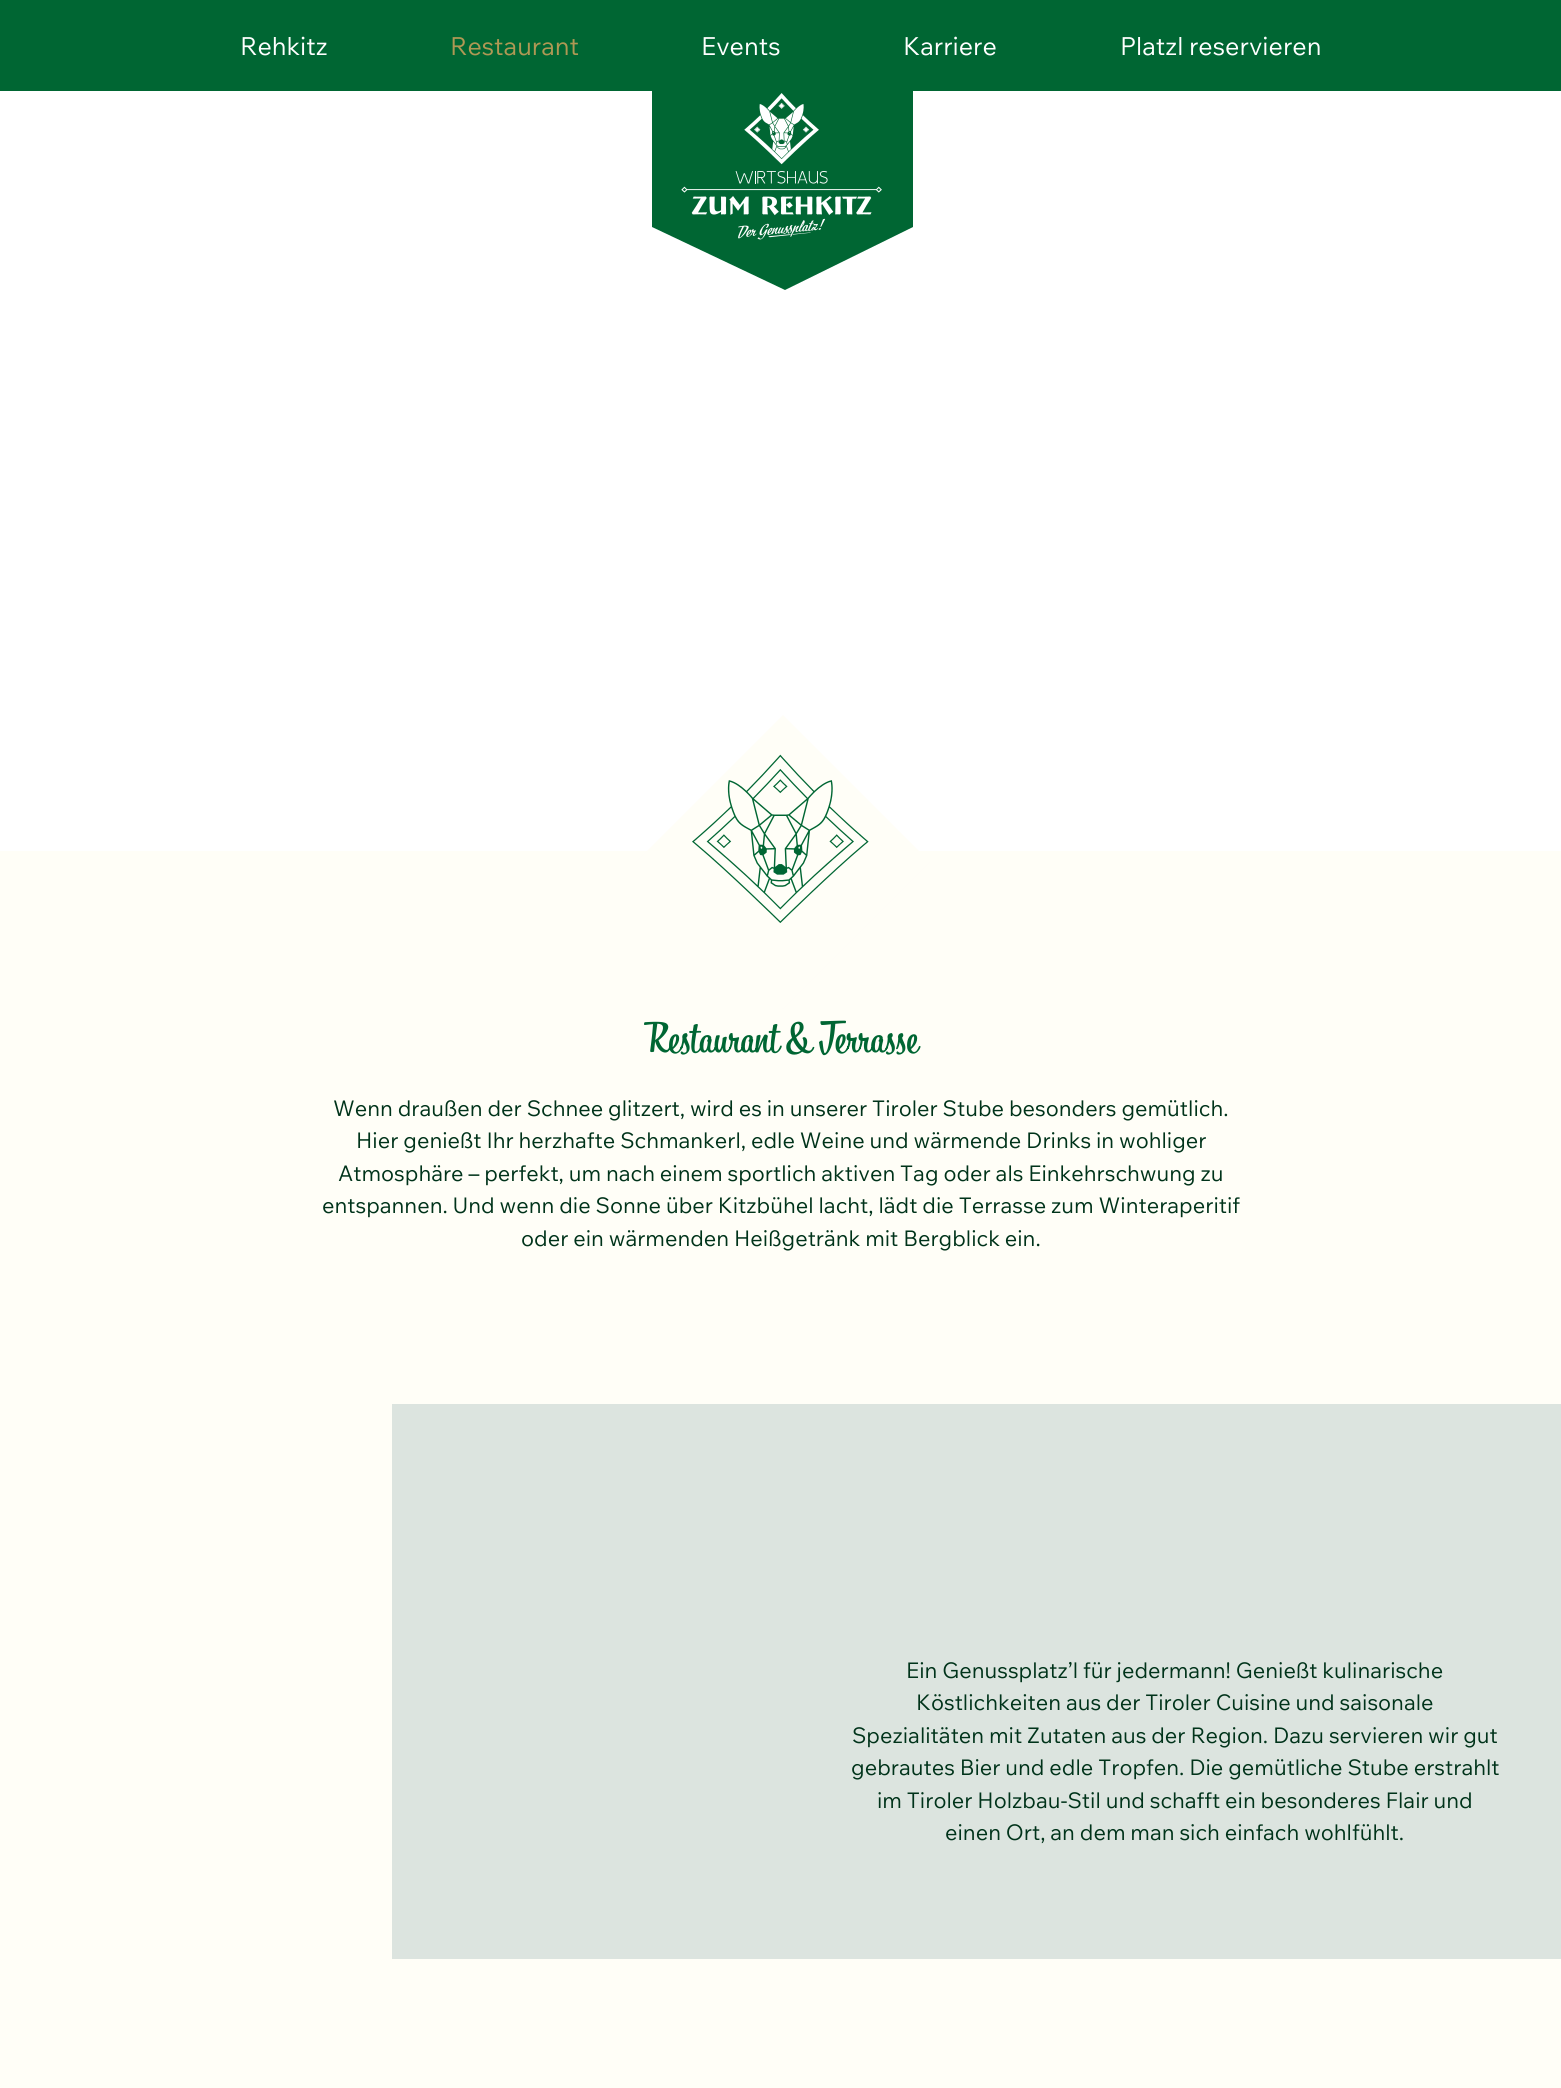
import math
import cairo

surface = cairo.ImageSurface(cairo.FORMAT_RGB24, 1561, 2088)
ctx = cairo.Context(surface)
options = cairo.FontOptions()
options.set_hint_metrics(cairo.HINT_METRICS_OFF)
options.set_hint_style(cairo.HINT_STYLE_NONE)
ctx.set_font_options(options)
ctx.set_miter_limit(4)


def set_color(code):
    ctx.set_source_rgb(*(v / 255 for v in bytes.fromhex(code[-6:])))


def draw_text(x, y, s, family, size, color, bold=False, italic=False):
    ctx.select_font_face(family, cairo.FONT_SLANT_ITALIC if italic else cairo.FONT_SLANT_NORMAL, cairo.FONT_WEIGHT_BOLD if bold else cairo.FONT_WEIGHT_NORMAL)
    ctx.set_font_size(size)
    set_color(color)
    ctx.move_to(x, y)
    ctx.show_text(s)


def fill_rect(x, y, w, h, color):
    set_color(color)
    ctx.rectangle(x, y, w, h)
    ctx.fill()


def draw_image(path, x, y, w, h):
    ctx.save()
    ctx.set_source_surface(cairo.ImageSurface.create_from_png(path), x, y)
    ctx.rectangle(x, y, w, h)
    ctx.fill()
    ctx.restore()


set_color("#ffffff")
ctx.paint()
fill_rect(0, 0, 1561, 91, "#006633")
ctx.new_path()
ctx.move_to(913, 227)
ctx.line_to(785, 290)
ctx.line_to(652, 227)
ctx.line_to(652, -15)
ctx.line_to(913, -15)
ctx.close_path()
ctx.fill()
draw_image("assets/img1.png", 681, 93, 201, 147)
draw_text(240, 55, "Rehkitz", "Wix Madefor Text", 25, "#ffffff")
draw_text(450, 55, "Restaurant", "Wix Madefor Text", 25, "#af9854")
draw_text(701, 55, "Events", "Wix Madefor Text", 25, "#ffffff")
draw_text(903, 55, "Karriere", "Wix Madefor Text", 25, "#ffffff")
draw_text(1120, 55, "Platzl reservieren", "Wix Madefor Text", 25, "#ffffff")
fill_rect(0, 851, 1561, 1237, "#fffef7")
ctx.new_path()
ctx.move_to(930, 862)
ctx.line_to(783, 1009)
ctx.line_to(636, 862)
ctx.line_to(783, 715)
ctx.close_path()
ctx.fill()
draw_image("assets/img2.png", 692, 754, 177, 169)
draw_text(644, 1052, "Restaurant & Terrasse", "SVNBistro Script", 42, "#006633")
draw_text(333, 1116, "Wenn draußen der Schnee glitzert, wird es in unserer Tiroler Stube besonders gemütlich.", "Wix Madefor Text", 21.7, "#00331a")
draw_text(356, 1148, "Hier genießt Ihr herzhafte Schmankerl, edle Weine und wärmende Drinks in wohliger", "Wix Madefor Text", 21.7, "#00331a")
draw_text(338, 1181, "Atmosphäre – perfekt, um nach einem sportlich aktiven Tag oder als Einkehrschwung zu", "Wix Madefor Text", 21.7, "#00331a")
draw_text(322, 1213, "entspannen. Und wenn die Sonne über Kitzbühel lacht, lädt die Terrasse zum Winteraperitif", "Wix Madefor Text", 21.7, "#00331a")
draw_text(521, 1246, "oder ein wärmenden Heißgetränk mit Bergblick ein.", "Wix Madefor Text", 21.7, "#00331a")
fill_rect(392, 1404, 1169, 555, "#dce4df")
draw_text(906, 1678, "Ein Genussplatz’l für jedermann! Genießt kulinarische", "Wix Madefor Text", 21.7, "#00331a")
draw_text(916, 1710, "Köstlichkeiten aus der Tiroler Cuisine und saisonale", "Wix Madefor Text", 21.7, "#00331a")
draw_text(852, 1743, "Spezialitäten mit Zutaten aus der Region. Dazu servieren wir gut", "Wix Madefor Text", 21.7, "#00331a")
draw_text(851, 1775, "gebrautes Bier und edle Tropfen. Die gemütliche Stube erstrahlt", "Wix Madefor Text", 21.7, "#00331a")
draw_text(877, 1808, "im Tiroler Holzbau-Stil und schafft ein besonderes Flair und", "Wix Madefor Text", 21.7, "#00331a")
draw_text(945, 1840, "einen Ort, an dem man sich einfach wohlfühlt.", "Wix Madefor Text", 21.7, "#00331a")
surface.write_to_png("output.png")
